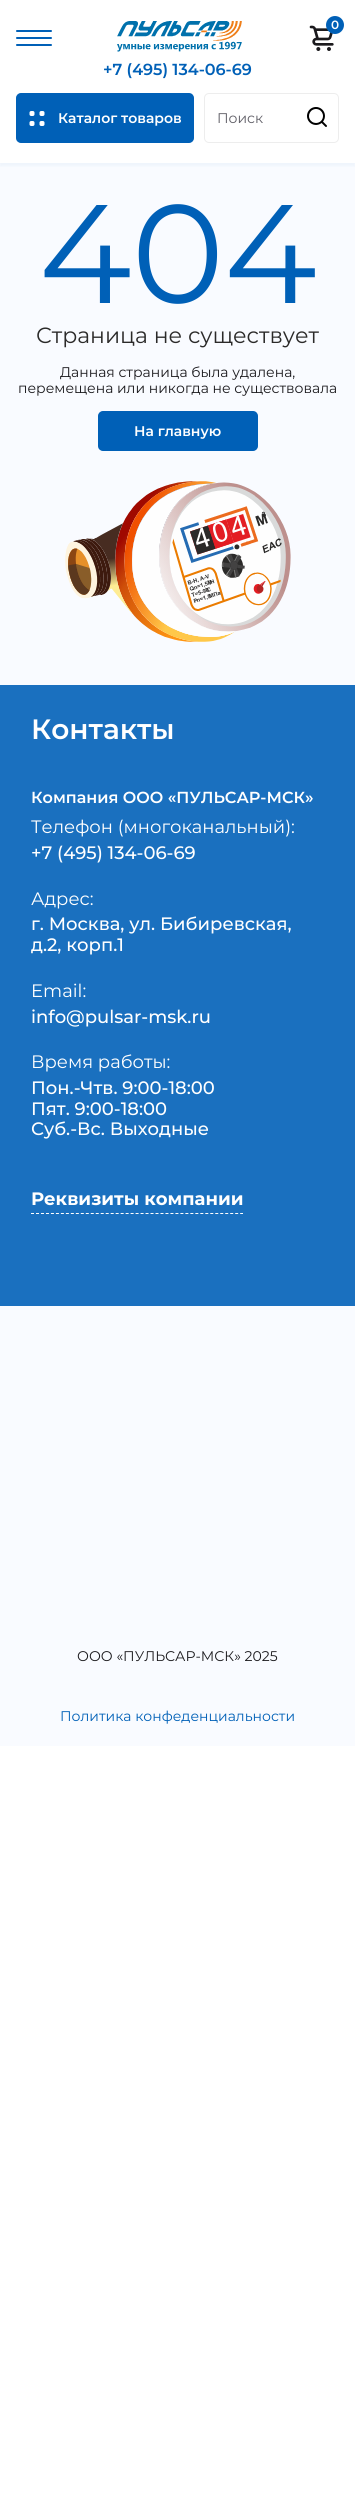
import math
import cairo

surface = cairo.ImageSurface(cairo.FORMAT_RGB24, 355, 2501)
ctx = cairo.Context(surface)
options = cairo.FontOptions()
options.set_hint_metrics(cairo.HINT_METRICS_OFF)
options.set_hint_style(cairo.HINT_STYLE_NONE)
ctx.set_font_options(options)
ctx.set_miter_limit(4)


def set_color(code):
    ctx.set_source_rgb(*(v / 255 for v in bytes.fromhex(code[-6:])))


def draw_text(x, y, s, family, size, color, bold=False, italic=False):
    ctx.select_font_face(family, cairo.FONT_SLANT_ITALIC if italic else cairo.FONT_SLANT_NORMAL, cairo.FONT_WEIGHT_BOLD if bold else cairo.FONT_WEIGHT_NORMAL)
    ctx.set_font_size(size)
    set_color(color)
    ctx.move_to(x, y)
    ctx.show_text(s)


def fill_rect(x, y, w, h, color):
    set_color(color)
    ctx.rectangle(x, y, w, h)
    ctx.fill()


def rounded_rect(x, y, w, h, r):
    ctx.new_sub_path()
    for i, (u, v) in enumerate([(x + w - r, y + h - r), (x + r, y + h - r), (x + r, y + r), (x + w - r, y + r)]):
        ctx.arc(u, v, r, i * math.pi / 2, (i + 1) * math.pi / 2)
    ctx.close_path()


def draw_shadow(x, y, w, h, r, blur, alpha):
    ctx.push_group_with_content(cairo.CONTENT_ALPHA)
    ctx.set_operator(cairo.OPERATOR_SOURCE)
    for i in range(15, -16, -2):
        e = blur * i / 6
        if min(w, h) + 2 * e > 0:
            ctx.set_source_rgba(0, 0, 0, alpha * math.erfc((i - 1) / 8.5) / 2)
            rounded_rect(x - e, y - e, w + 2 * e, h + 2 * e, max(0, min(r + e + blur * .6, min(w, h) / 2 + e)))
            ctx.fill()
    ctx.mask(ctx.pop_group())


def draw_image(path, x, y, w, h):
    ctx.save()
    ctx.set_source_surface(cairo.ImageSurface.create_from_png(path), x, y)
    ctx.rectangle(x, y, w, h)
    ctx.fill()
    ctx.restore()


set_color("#ffffff")
ctx.paint()
fill_rect(0, 163, 355, 1583, "#f9fbff")
set_color("#0060b7")
rounded_rect(16, 30, 36, 2, 1)
ctx.fill()
rounded_rect(16, 37, 36, 2, 1)
ctx.fill()
rounded_rect(16, 44, 36, 2, 1)
ctx.fill()
draw_image("assets/img1.png", 117, 21, 125, 31)
draw_image("assets/img2.png", 309, 25, 25, 26)
ctx.arc(335, 25, 9, 0, 2 * math.pi)
ctx.fill()
draw_text(331, 29, "0", "Montserrat SemiBold", 12, "#ffffff")
draw_text(103, 75, "+7 (495) 134-06-69", "Montserrat SemiBold", 16, "#0060b7")
ctx.save()
ctx.rectangle(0, 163, 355, 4)
ctx.clip()
set_color("#0060b7")
draw_shadow(0, 92, 355, 74, 0, 2.5, 0.05)
ctx.restore()
rounded_rect(17, 94, 176, 48, 4)
ctx.fill_preserve()
ctx.stroke()
draw_image("assets/img3.png", 29, 111, 16, 15)
draw_text(58, 123, "Каталог товаров", "Montserrat SemiBold", 14, "#ffffff")
rounded_rect(204.5, 93.5, 134, 49, 4.5)
set_color("#ededed")
ctx.set_line_width(1)
ctx.stroke()
draw_text(217, 123, "Поиск", "Montserrat", 14, "#605f67")
draw_image("assets/img4.png", 307, 107, 20, 20)
draw_text(39, 303, "404", "Montserrat", 140, "#0060b7")
draw_text(36, 343, "Страница не существует", "Montserrat", 22, "#2b2a29")
draw_text(60, 377, "Данная страница была удалена,", "Montserrat", 14, "#1b1a1d")
draw_text(18, 393, "перемещена или никогда не существовала", "Montserrat", 14, "#1b1a1d")
set_color("#0060b7")
rounded_rect(99, 412, 158, 38, 4)
ctx.fill_preserve()
ctx.set_line_width(2)
ctx.stroke()
draw_text(134, 436, "На главную", "Montserrat SemiBold", 14, "#ffffff")
draw_image("assets/img5.png", 65, 481, 226, 161)
fill_rect(0, 685, 355, 621, "#1a70bf")
draw_text(31, 739, "Контакты", "Montserrat SemiBold", 28, "#ffffff")
draw_text(31, 803, "Компания ООО «ПУЛЬСАР-МСК»", "Montserrat SemiBold", 16, "#ffffff")
draw_text(31, 833, "Телефон (многоканальный):", "Montserrat", 18, "#ffffff")
draw_text(31, 859, "+7 (495) 134-06-69", "Montserrat Medium", 18, "#ffffff")
draw_text(31, 905, "Адрес:", "Montserrat", 18, "#ffffff")
draw_text(31, 930, "г. Москва, ул. Бибиревская,", "Montserrat Medium", 18, "#ffffff")
draw_text(31, 951, "д.2, корп.1", "Montserrat Medium", 18, "#ffffff")
draw_text(31, 997, "Email:", "Montserrat", 18, "#ffffff")
draw_text(31, 1023, "info@pulsar-msk.ru", "Montserrat Medium", 18, "#ffffff")
draw_text(31, 1068, "Время работы:", "Montserrat", 18, "#ffffff")
draw_text(31, 1094, "Пон.-Чтв. 9:00-18:00", "Montserrat Medium", 18, "#ffffff")
draw_text(31, 1115, "Пят. 9:00-18:00", "Montserrat Medium", 18, "#ffffff")
draw_text(31, 1135, "Суб.-Вс. Выходные", "Montserrat Medium", 18, "#ffffff")
draw_text(31, 1205, "Реквизиты компании", "Montserrat", 18, "#ffffff", bold=True)
ctx.new_path()
ctx.move_to(31, 1213.5)
ctx.line_to(243, 1213.5)
ctx.set_line_width(1)
ctx.set_dash([3, 1.98])
ctx.stroke()
draw_text(77, 1661, "ООО «ПУЛЬСАР-МСК» 2025", "Montserrat", 14, "#1b1a1d")
draw_text(60, 1721, "Политика конфеденциальности", "Montserrat", 14, "#0060b7")
surface.write_to_png("output.png")
